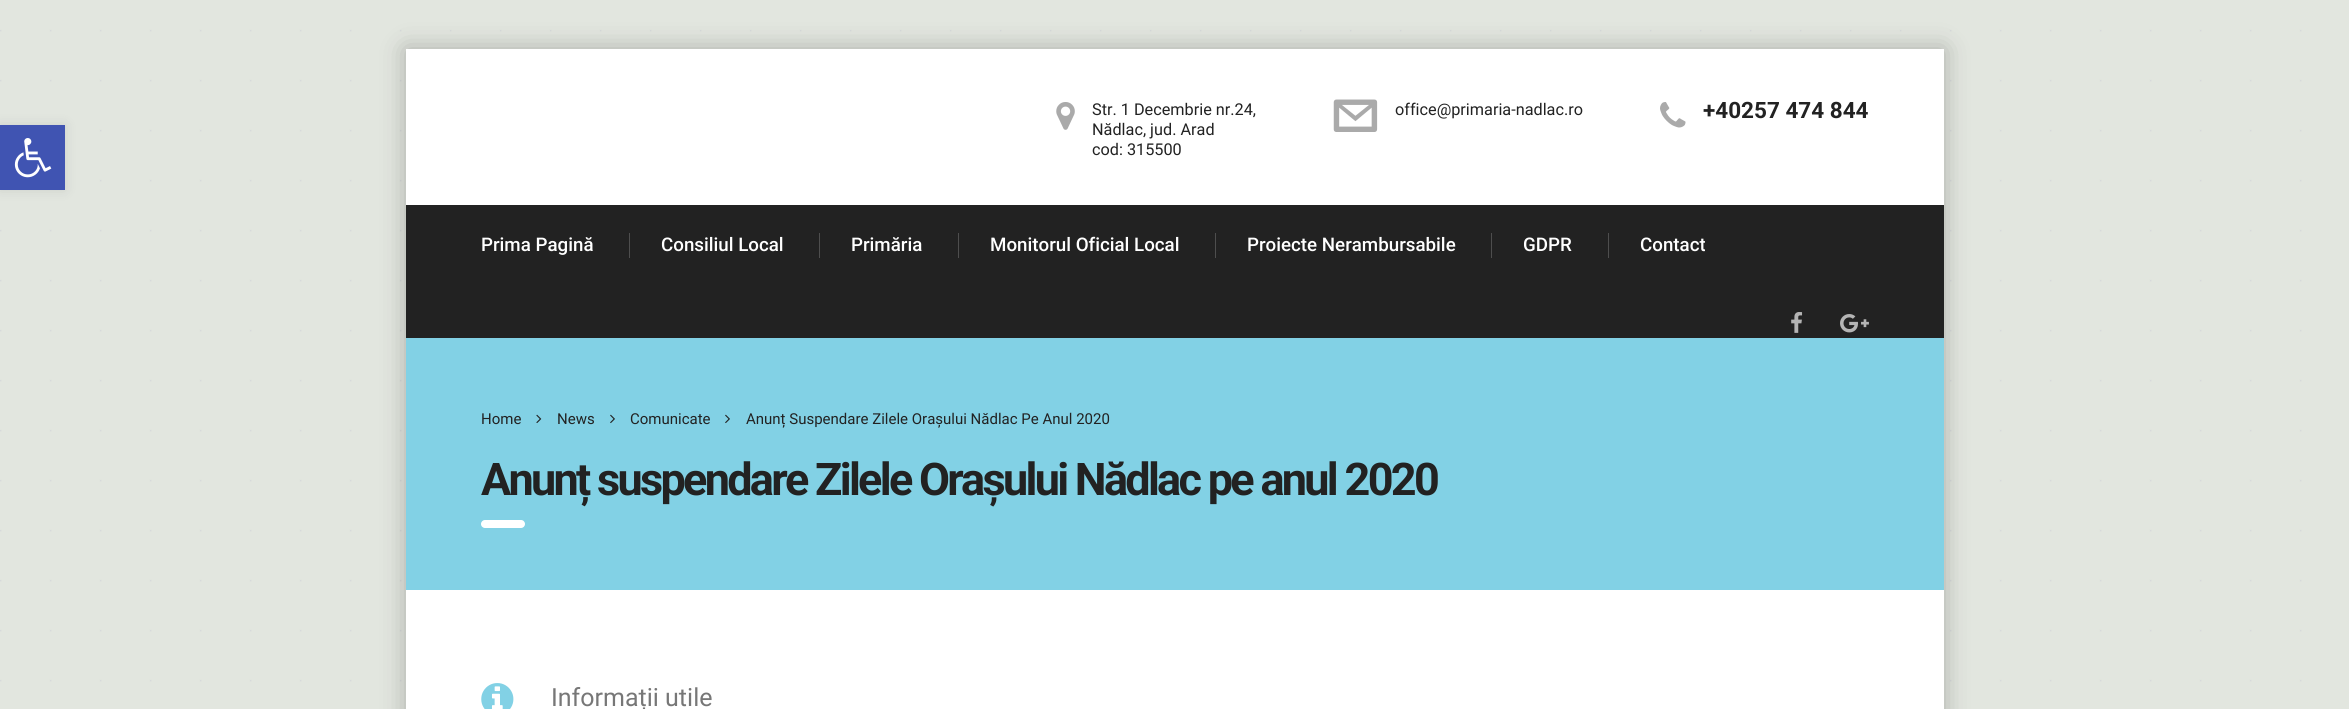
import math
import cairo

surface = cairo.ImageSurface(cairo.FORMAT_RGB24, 2349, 709)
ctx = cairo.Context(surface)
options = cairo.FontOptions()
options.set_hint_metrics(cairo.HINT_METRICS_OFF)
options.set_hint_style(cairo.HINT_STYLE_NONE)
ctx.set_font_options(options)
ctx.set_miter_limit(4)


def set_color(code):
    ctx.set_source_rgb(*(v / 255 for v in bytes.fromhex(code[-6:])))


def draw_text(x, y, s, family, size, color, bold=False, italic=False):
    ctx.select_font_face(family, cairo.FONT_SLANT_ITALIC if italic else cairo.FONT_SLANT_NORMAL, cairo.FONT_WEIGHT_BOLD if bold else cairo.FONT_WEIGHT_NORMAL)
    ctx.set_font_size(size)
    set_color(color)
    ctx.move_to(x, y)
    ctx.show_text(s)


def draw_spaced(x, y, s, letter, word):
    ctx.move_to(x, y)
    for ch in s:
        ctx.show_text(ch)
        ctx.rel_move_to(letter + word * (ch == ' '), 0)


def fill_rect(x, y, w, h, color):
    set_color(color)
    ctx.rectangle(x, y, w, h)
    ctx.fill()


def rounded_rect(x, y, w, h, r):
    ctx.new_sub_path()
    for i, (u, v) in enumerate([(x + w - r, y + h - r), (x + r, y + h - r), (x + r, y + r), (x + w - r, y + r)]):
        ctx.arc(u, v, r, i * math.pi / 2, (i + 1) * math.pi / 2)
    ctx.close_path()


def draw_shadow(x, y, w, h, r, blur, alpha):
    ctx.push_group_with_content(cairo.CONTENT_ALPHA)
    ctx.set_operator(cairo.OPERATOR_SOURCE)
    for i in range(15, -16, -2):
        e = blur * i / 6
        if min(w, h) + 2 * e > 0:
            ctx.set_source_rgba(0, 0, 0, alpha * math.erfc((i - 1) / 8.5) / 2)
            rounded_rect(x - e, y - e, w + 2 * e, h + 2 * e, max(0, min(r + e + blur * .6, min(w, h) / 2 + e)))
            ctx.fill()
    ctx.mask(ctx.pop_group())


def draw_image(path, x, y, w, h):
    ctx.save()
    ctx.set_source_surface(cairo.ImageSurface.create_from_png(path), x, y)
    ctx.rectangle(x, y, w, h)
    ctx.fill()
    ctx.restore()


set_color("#ffffff")
ctx.paint()
draw_image("assets/img1.png", 0, 0, 2349, 709)
set_color("#000000")
draw_shadow(0, 125, 65, 65, 0, 6, 0.1)
fill_rect(0, 125, 65, 65, "#4054b2")
draw_image("assets/img2.png", 14, 138, 38, 40)
set_color("#000000")
draw_shadow(406, 49, 1538, 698, 0, 12.5, 0.25)
fill_rect(406, 49, 1538, 660, "#ffffff")
draw_image("assets/img3.png", 1056, 102, 19, 28)
draw_text(1092, 115, "Str. 1 Decembrie nr.24,", "Roboto", 16.25, "#222222")
draw_text(1092, 135, "Nădlac, jud. Arad", "Roboto", 16.25, "#222222")
draw_text(1092, 155, "cod: 315500", "Roboto", 16.25, "#222222")
draw_image("assets/img4.png", 1333, 99, 45, 33)
draw_text(1395, 115, "office@primaria-nadlac.ro", "Roboto", 16.25, "#222222")
draw_image("assets/img5.png", 1660, 102, 26, 26)
draw_text(1703, 118, "+40257 474 844", "Roboto", 22.5, "#222222", bold=True)
fill_rect(406, 205, 1538, 133, "#222222")
draw_text(481, 251, "Prima Pagină", "Roboto Medium", 18.75, "#ffffff")
fill_rect(629, 233, 1, 25, "#4e4e4e")
draw_text(661, 251, "Consiliul Local", "Roboto Medium", 18.75, "#ffffff")
fill_rect(819, 233, 1, 25, "#4e4e4e")
draw_text(851, 251, "Primăria", "Roboto Medium", 18.75, "#ffffff")
fill_rect(958, 233, 1, 25, "#4e4e4e")
draw_text(990, 251, "Monitorul Oficial Local", "Roboto Medium", 18.75, "#ffffff")
fill_rect(1215, 233, 1, 25, "#4e4e4e")
draw_text(1247, 251, "Proiecte Nerambursabile", "Roboto Medium", 18.75, "#ffffff")
fill_rect(1491, 233, 1, 25, "#4e4e4e")
draw_text(1523, 251, "GDPR", "Roboto Medium", 18.75, "#ffffff")
fill_rect(1608, 233, 1, 25, "#4e4e4e")
draw_text(1640, 251, "Contact", "Roboto Medium", 18.75, "#ffffff")
draw_image("assets/img6.png", 1791, 312, 12, 21)
draw_image("assets/img7.png", 1840, 314, 29, 19)
fill_rect(406, 338, 1538, 252, "#82d1e5")
draw_text(481, 424, "Home", "Roboto", 15, "#222222")
draw_image("assets/img8.png", 536, 414, 6, 9)
draw_text(557, 424, "News", "Roboto", 15, "#222222")
draw_image("assets/img9.png", 610, 414, 5, 10)
draw_text(630, 424, "Comunicate", "Roboto", 15, "#222222")
draw_image("assets/img9.png", 725, 414, 5, 10)
draw_text(746, 424, "Anunț Suspendare Zilele Orașului Nădlac Pe Anul 2020", "Roboto", 15, "#222222")
ctx.select_font_face("Roboto", cairo.FONT_SLANT_NORMAL, cairo.FONT_WEIGHT_BOLD)
ctx.set_font_size(45)
draw_spaced(481, 495, "Anunț suspendare Zilele Orașului Nădlac pe anul 2020", -2.7, 0)
set_color("#ffffff")
rounded_rect(481, 520, 44, 8, 4)
ctx.fill()
draw_image("assets/img10.png", 481, 683, 33, 26)
draw_text(551, 706, "Informații utile", "Roboto", 25, "#777777")
surface.write_to_png("output.png")
